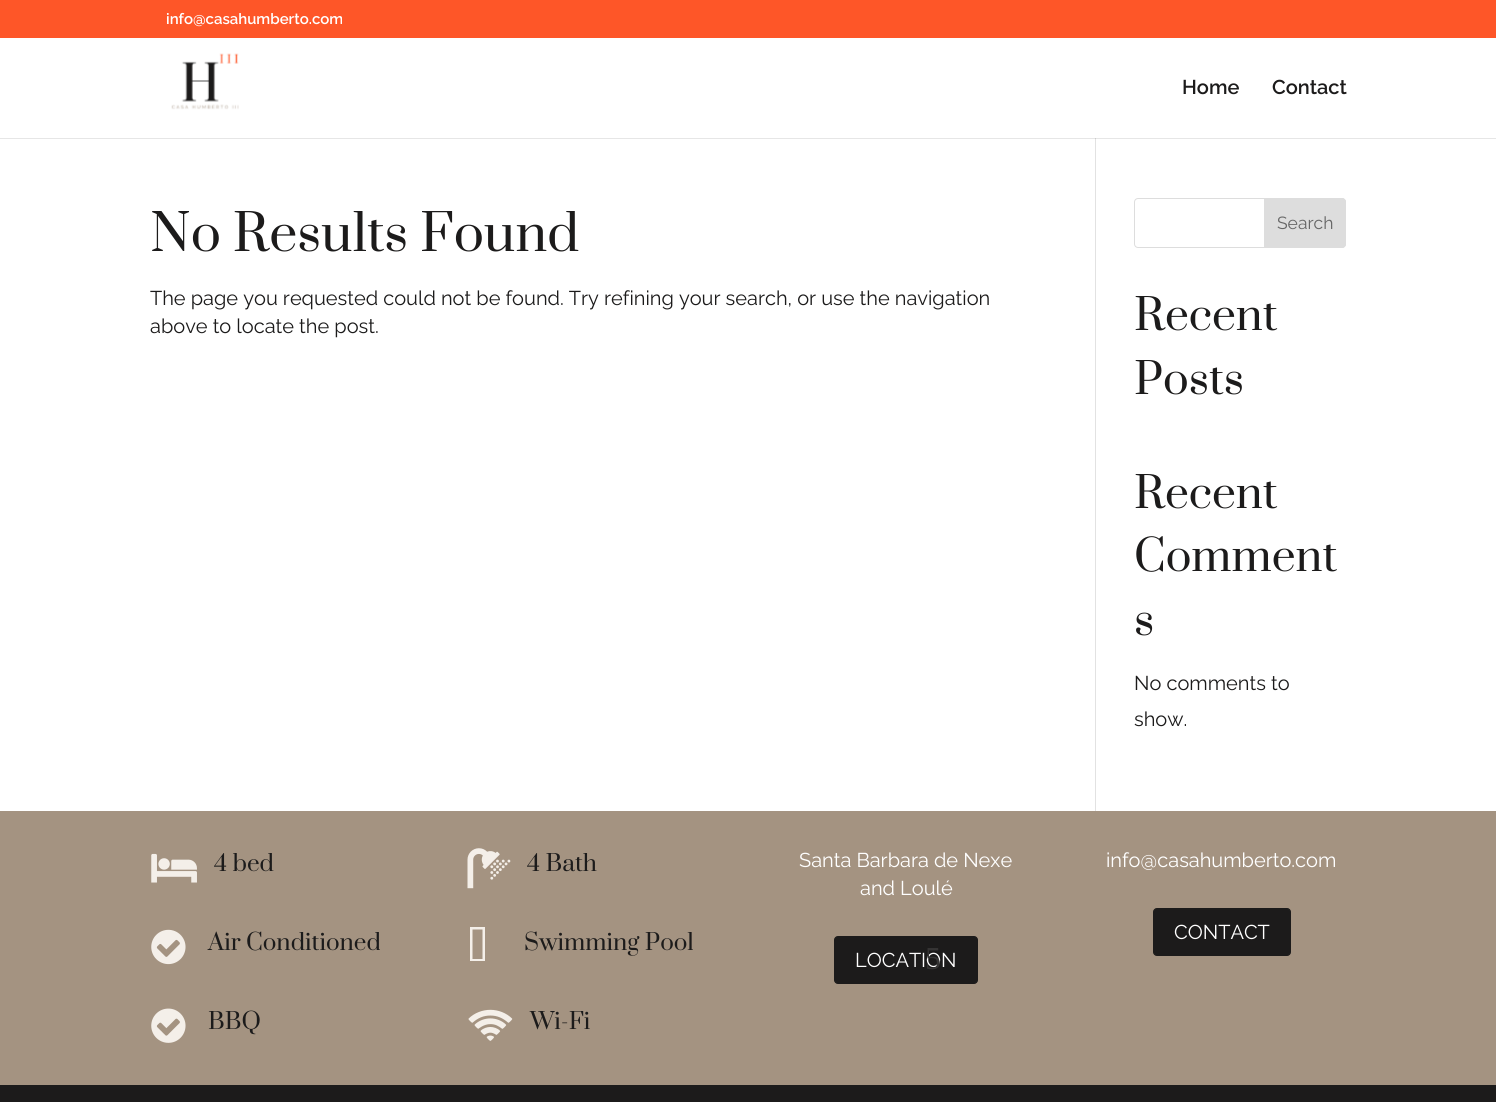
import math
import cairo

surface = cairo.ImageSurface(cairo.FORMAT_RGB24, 1496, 1102)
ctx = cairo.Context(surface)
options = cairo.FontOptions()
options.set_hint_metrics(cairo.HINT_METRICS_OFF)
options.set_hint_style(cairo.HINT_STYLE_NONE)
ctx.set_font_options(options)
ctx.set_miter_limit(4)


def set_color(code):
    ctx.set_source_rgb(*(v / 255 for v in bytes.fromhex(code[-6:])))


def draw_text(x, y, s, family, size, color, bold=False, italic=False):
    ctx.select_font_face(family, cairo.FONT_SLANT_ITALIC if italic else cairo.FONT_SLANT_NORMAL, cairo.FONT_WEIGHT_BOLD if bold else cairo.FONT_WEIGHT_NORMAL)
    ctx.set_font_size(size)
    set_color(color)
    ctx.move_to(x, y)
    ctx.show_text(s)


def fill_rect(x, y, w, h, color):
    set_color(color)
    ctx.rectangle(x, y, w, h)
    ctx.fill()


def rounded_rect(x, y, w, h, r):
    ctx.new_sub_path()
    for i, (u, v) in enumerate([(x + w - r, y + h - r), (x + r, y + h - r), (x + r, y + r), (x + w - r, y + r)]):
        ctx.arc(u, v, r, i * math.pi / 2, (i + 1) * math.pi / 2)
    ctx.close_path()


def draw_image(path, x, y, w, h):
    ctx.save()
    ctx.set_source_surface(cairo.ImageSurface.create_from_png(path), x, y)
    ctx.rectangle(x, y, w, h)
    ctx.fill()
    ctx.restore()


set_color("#ffffff")
ctx.paint()
fill_rect(0, 0, 1496, 38, "#fe5628")
draw_text(166, 24, "info@casahumberto.com", "Raleway SemiBold", 15, "#ffffff")
draw_image("assets/img1.png", 155, 38, 100, 72)
draw_text(1182, 94, "Home", "Raleway SemiBold", 20, "#1c1b1b")
draw_text(1272, 94, "Contact", "Raleway SemiBold", 20, "#1c1b1b")
fill_rect(0, 138, 1496, 1, "#e6e6e6")
fill_rect(1095, 139, 1, 672, "#e2e2e2")
fill_rect(1095, 138, 1, 1, "#cbcbcb")
draw_text(150, 251, "No Results Found", "Prata", 50, "#1c1b1b")
draw_text(150, 305, "The page you requested could not be found. Try refining your search, or use the navigation", "Raleway", 20, "#1c1b1b")
draw_text(150, 333, "above to locate the post.", "Raleway", 20, "#1c1b1b")
rounded_rect(1134.5, 198.5, 211, 49, 3.5)
set_color("#dddddd")
ctx.set_line_width(1)
ctx.stroke()
ctx.new_path()
ctx.move_to(1264.5, 198.5)
ctx.line_to(1342, 198.5)
ctx.curve_to(1344, 198.5, 1345.5, 200, 1345.5, 202)
ctx.line_to(1345.5, 244)
ctx.curve_to(1345.5, 246, 1344, 247.5, 1342, 247.5)
ctx.line_to(1264.5, 247.5)
ctx.close_path()
ctx.fill_preserve()
ctx.stroke()
draw_text(1277, 229, "Search", "Raleway", 17.5, "#666666")
draw_text(1134, 330, "Recent", "Prata", 42.5, "#1c1b1b")
draw_text(1134, 394, "Posts", "Prata", 42.5, "#1c1b1b")
draw_text(1134, 508, "Recent", "Prata", 42.5, "#1c1b1b")
draw_text(1134, 571, "Comment", "Prata", 42.5, "#1c1b1b")
draw_text(1134, 635, "s", "Prata", 42.5, "#1c1b1b")
draw_text(1134, 690, "No comments to", "Raleway", 20, "#1c1b1b")
draw_text(1134, 726, "show.", "Raleway", 20, "#1c1b1b")
fill_rect(0, 811, 1496, 274, "#a49381")
draw_image("assets/img2.png", 151, 853, 46, 30)
draw_text(214, 871, "4 bed", "Prata", 22.5, "#1c1b1b")
draw_image("assets/img3.png", 151, 929, 35, 36)
draw_text(208, 950, "Air Conditioned", "Prata", 22.5, "#1c1b1b")
draw_image("assets/img4.png", 151, 1008, 35, 35)
draw_text(208, 1029, "BBQ", "Prata", 22.5, "#1c1b1b")
draw_image("assets/img5.png", 467, 848, 44, 41)
draw_text(527, 871, "4 Bath", "Prata", 22.5, "#1c1b1b")
set_color("#f4efe9")
ctx.new_path()
ctx.move_to(472.5, 959)
ctx.line_to(472.5, 929.5)
ctx.line_to(482.5, 929.5)
ctx.line_to(482.5, 959)
ctx.close_path()
ctx.move_to(470, 961)
ctx.line_to(485, 961)
ctx.line_to(485, 927)
ctx.line_to(470, 927)
ctx.close_path()
ctx.fill()
draw_text(524, 950, "Swimming Pool", "Prata", 22.5, "#1c1b1b")
draw_image("assets/img6.png", 468, 1009, 45, 32)
draw_text(530, 1029, "Wi-Fi", "Prata", 22.5, "#1c1b1b")
draw_text(799, 867, "Santa Barbara de Nexe", "Raleway", 20, "#ffffff")
draw_text(860, 895, "and Loulé", "Raleway", 20, "#ffffff")
set_color("#1c1b1b")
rounded_rect(834.5, 936.5, 143, 47, 3.5)
ctx.fill_preserve()
ctx.stroke()
draw_text(855, 967, "LOCATION", "Raleway", 20, "#ffffff")
draw_text(925, 969, "5", "Liberation Serif", 32, "#353434")
draw_text(1106, 867, "info@casahumberto.com", "Raleway", 20, "#ffffff")
set_color("#1c1b1b")
rounded_rect(1153.5, 908.5, 137, 47, 3.5)
ctx.fill_preserve()
ctx.stroke()
draw_text(1174, 939, "CONTACT", "Raleway", 20, "#ffffff")
fill_rect(0, 1085, 1496, 17, "#1c1b1b")
surface.write_to_png("output.png")
